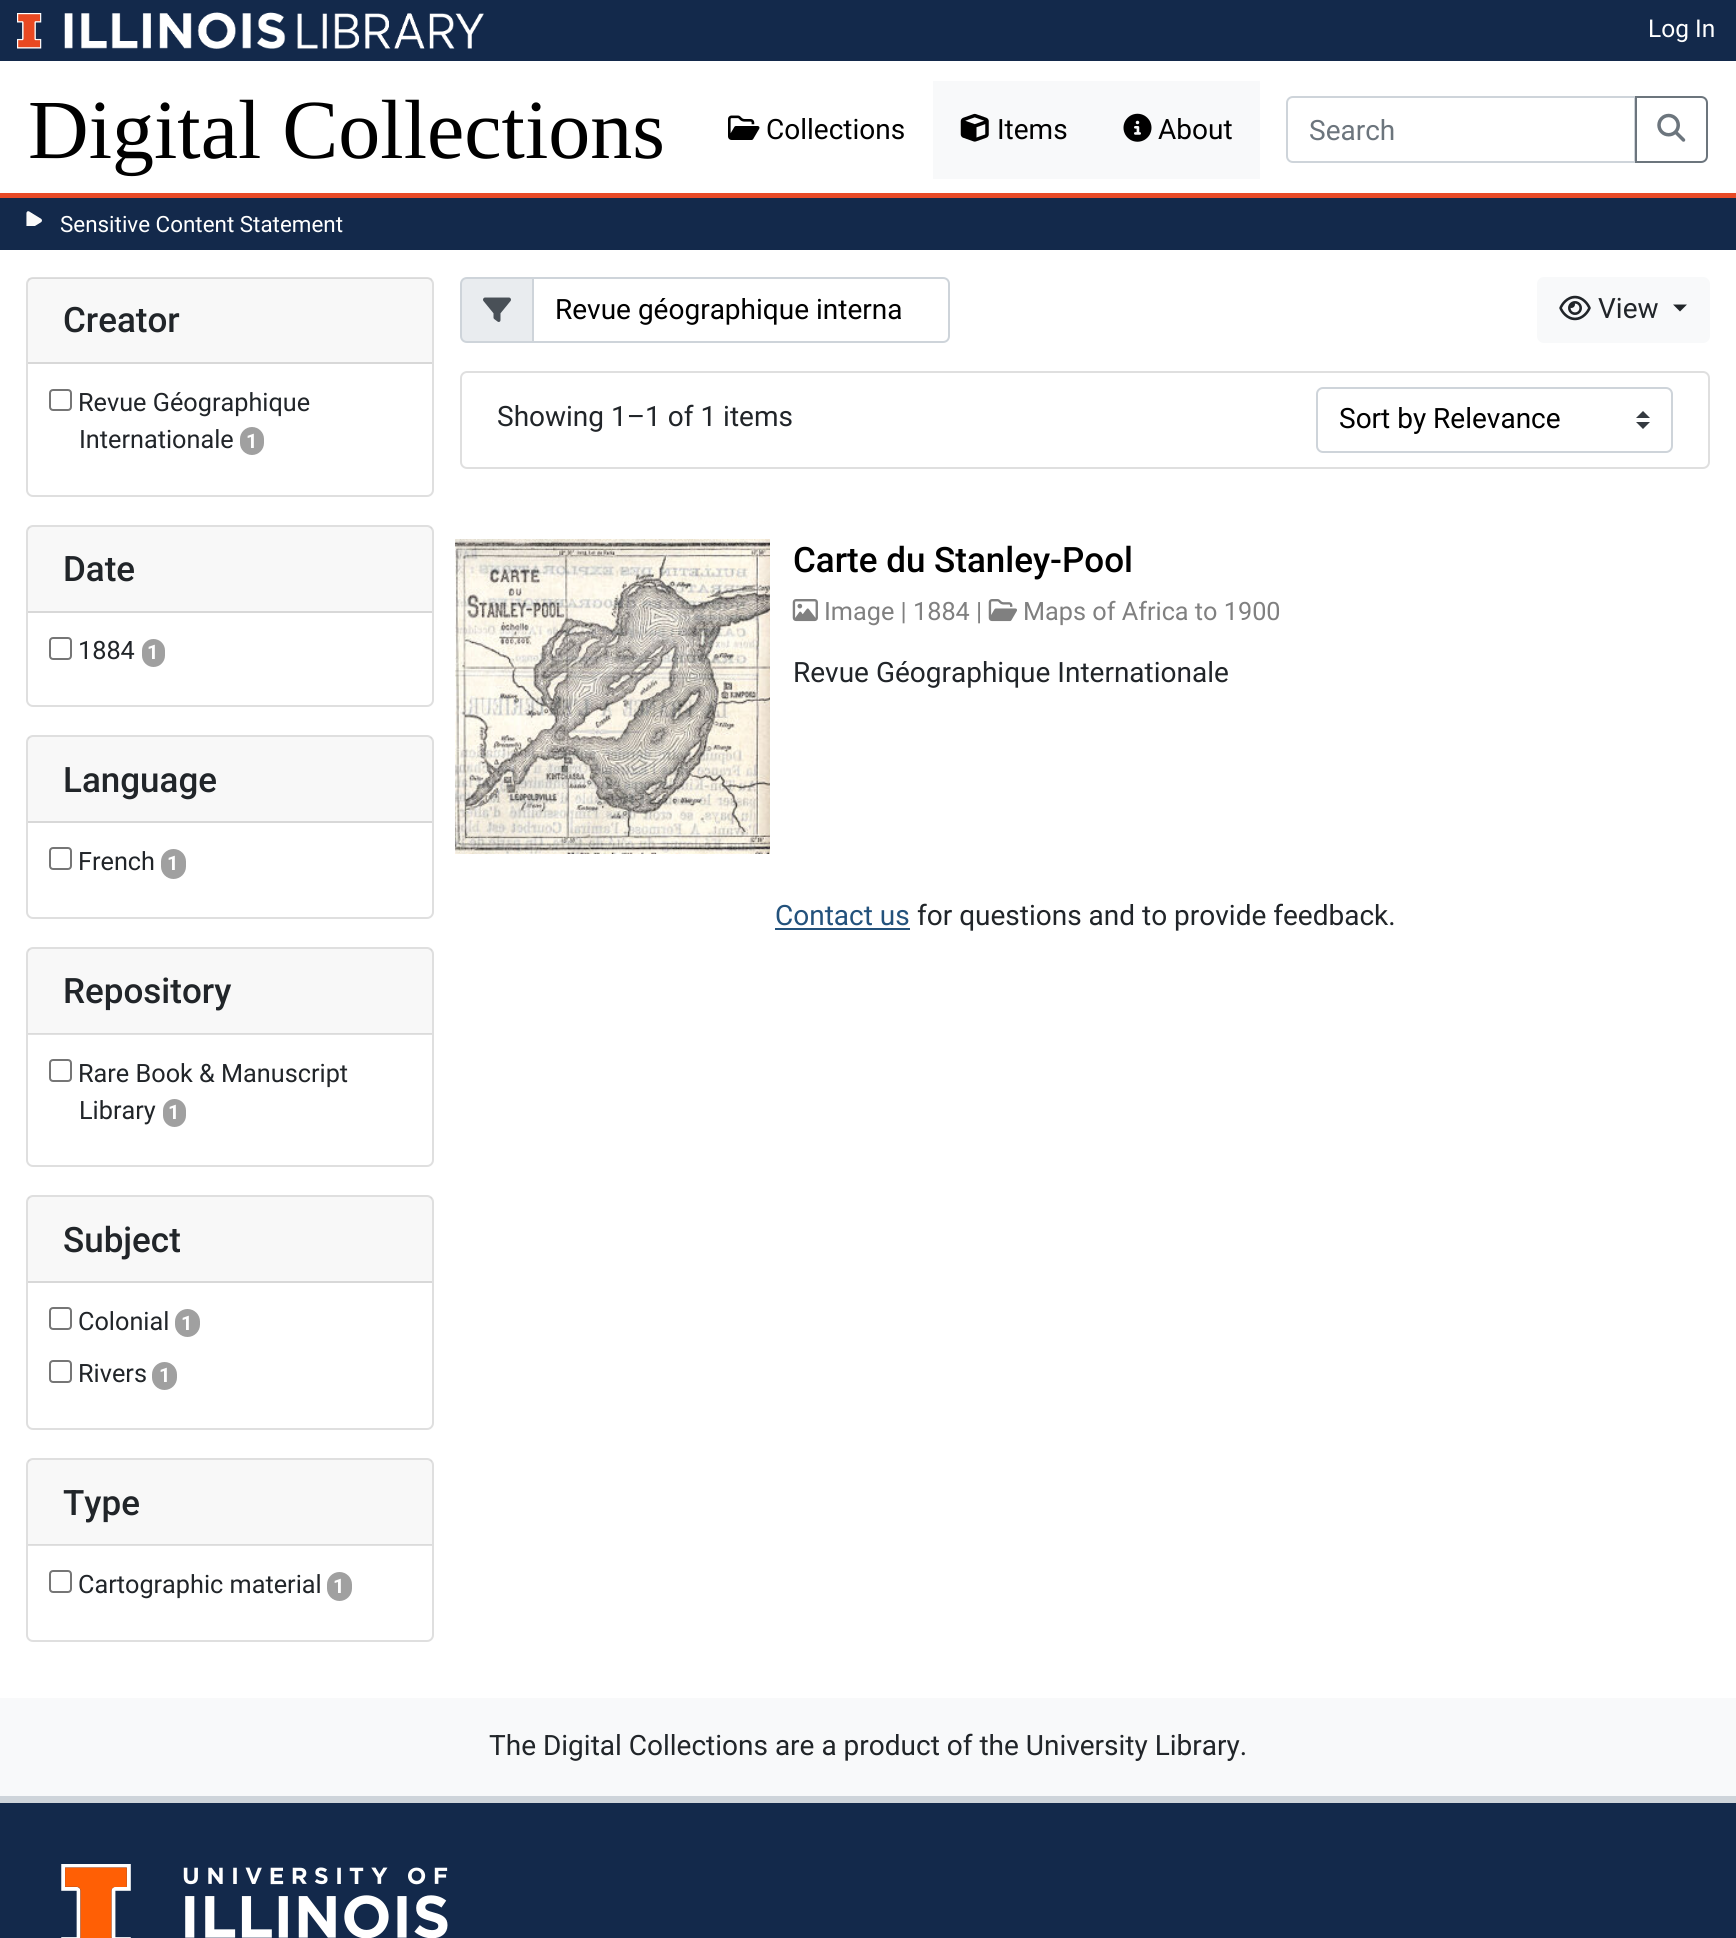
import math
import cairo

surface = cairo.ImageSurface(cairo.FORMAT_RGB24, 1736, 1938)
ctx = cairo.Context(surface)
options = cairo.FontOptions()
options.set_hint_metrics(cairo.HINT_METRICS_OFF)
options.set_hint_style(cairo.HINT_STYLE_NONE)
ctx.set_font_options(options)
ctx.set_miter_limit(4)


def set_color(code):
    ctx.set_source_rgb(*(v / 255 for v in bytes.fromhex(code[-6:])))


def draw_text(x, y, s, family, size, color, bold=False, italic=False):
    ctx.select_font_face(family, cairo.FONT_SLANT_ITALIC if italic else cairo.FONT_SLANT_NORMAL, cairo.FONT_WEIGHT_BOLD if bold else cairo.FONT_WEIGHT_NORMAL)
    ctx.set_font_size(size)
    set_color(color)
    ctx.move_to(x, y)
    ctx.show_text(s)


def fill_rect(x, y, w, h, color):
    set_color(color)
    ctx.rectangle(x, y, w, h)
    ctx.fill()


def rounded_rect(x, y, w, h, r):
    ctx.new_sub_path()
    for i, (u, v) in enumerate([(x + w - r, y + h - r), (x + r, y + h - r), (x + r, y + r), (x + w - r, y + r)]):
        ctx.arc(u, v, r, i * math.pi / 2, (i + 1) * math.pi / 2)
    ctx.close_path()


def draw_image(path, x, y, w, h):
    ctx.save()
    ctx.set_source_surface(cairo.ImageSurface.create_from_png(path), x, y)
    ctx.rectangle(x, y, w, h)
    ctx.fill()
    ctx.restore()


set_color("#ffffff")
ctx.paint()
fill_rect(0, 0, 1736, 61, "#13294b")
draw_image("assets/img1.png", 17, 13, 25, 36)
draw_image("assets/img2.png", 64, 12, 222, 37)
draw_image("assets/img3.png", 297, 13, 187, 36)
draw_text(1648, 37, "Log In", "Roboto", 24.5, "#ffffff")
fill_rect(0, 193, 1736, 5, "#e84a27")
draw_text(28, 158, "Digital Collections", "Liberation Serif", 84, "#000000")
draw_image("assets/img4.png", 728, 115, 32, 25)
draw_text(766, 139, "Collections", "Roboto", 28, "#000000")
fill_rect(933, 81, 327, 98, "#f8f9fa")
draw_image("assets/img5.png", 960, 113, 29, 29)
draw_text(997, 139, "Items", "Roboto", 28, "#000000")
draw_image("assets/img6.png", 1123, 113, 29, 29)
draw_text(1158, 139, "About", "Roboto", 28, "#000000")
ctx.new_path()
ctx.move_to(1293, 97)
ctx.line_to(1635, 97)
ctx.line_to(1635, 162)
ctx.line_to(1293, 162)
ctx.curve_to(1289.5, 162, 1287, 159.5, 1287, 156)
ctx.line_to(1287, 103)
ctx.curve_to(1287, 99.5, 1289.5, 97, 1293, 97)
ctx.close_path()
set_color("#ced4da")
ctx.stroke()
draw_text(1309, 140, "Search", "Roboto", 28, "#6c757d")
ctx.new_path()
ctx.move_to(1636, 97)
ctx.line_to(1701, 97)
ctx.curve_to(1704.5, 97, 1707, 99.5, 1707, 103)
ctx.line_to(1707, 156)
ctx.curve_to(1707, 159.5, 1704.5, 162, 1701, 162)
ctx.line_to(1636, 162)
ctx.close_path()
ctx.stroke()
draw_image("assets/img7.png", 1657, 113, 29, 29)
fill_rect(0, 198, 1736, 52, "#13294b")
draw_image("assets/img8.png", 26, 211, 16, 15)
draw_text(60, 232, "Sensitive Content Statement", "Roboto", 22.4, "#ffffff")
rounded_rect(27, 278, 406, 218, 6)
set_color("#dfdfdf")
ctx.stroke()
ctx.set_source_rgba(0, 0, 0, 0.03)
ctx.rectangle(28, 278, 404, 84)
ctx.fill()
fill_rect(28, 362, 404, 2, "#d8d8d8")
draw_text(63, 332, "Creator", "Roboto Medium", 35, "#212529")
rounded_rect(50, 390, 21, 20, 3)
set_color("#767676")
ctx.stroke()
draw_text(78, 411, "Revue Géographique", "Roboto", 25.25, "#212529")
draw_text(79, 448, "Internationale", "Roboto", 25.25, "#212529")
set_color("#a0a0a0")
rounded_rect(240, 427, 24, 28, 12)
ctx.fill()
draw_text(246, 448, "1", "Roboto", 20, "#ffffff", bold=True)
rounded_rect(27, 526, 406, 180, 6)
set_color("#dfdfdf")
ctx.stroke()
ctx.set_source_rgba(0, 0, 0, 0.03)
ctx.rectangle(28, 527, 404, 84)
ctx.fill()
fill_rect(28, 611, 404, 2, "#d8d8d8")
draw_text(63, 581, "Date", "Roboto Medium", 35, "#212529")
rounded_rect(50, 638, 21, 21, 3)
set_color("#767676")
ctx.stroke()
draw_text(78, 659, "1884", "Roboto", 25.25, "#212529")
set_color("#a0a0a0")
rounded_rect(142, 639, 23, 28, 11.5)
ctx.fill()
draw_text(147, 659, "1", "Roboto", 20, "#ffffff", bold=True)
rounded_rect(27, 736, 406, 182, 6)
set_color("#dfdfdf")
ctx.stroke()
ctx.set_source_rgba(0, 0, 0, 0.03)
ctx.rectangle(28, 737, 404, 84)
ctx.fill()
fill_rect(28, 821, 404, 2, "#d8d8d8")
draw_text(63, 792, "Language", "Roboto Medium", 35, "#212529")
rounded_rect(50, 848, 21, 21, 3)
set_color("#767676")
ctx.stroke()
draw_text(78, 870, "French", "Roboto", 25.25, "#212529")
set_color("#a0a0a0")
rounded_rect(161, 849, 25, 30, 12.5)
ctx.fill()
draw_text(167, 870, "1", "Roboto", 20, "#ffffff", bold=True)
rounded_rect(27, 948, 406, 218, 6)
set_color("#dfdfdf")
ctx.stroke()
ctx.set_source_rgba(0, 0, 0, 0.03)
ctx.rectangle(28, 949, 404, 85)
ctx.fill()
ctx.set_source_rgba(0, 0, 0, 0.12)
ctx.rectangle(28, 1033, 404, 2)
ctx.fill()
draw_text(63, 1003, "Repository", "Roboto Medium", 35, "#212529")
rounded_rect(50, 1060, 21, 21, 3)
set_color("#767676")
ctx.stroke()
draw_text(78, 1082, "Rare Book & Manuscript", "Roboto", 25.25, "#212529")
draw_text(79, 1119, "Library", "Roboto", 25.25, "#212529")
set_color("#a0a0a0")
rounded_rect(163, 1099, 23, 28, 11.5)
ctx.fill()
draw_text(168, 1119, "1", "Roboto", 20, "#ffffff", bold=True)
rounded_rect(27, 1196, 406, 233, 6)
set_color("#dfdfdf")
ctx.stroke()
ctx.set_source_rgba(0, 0, 0, 0.03)
ctx.rectangle(28, 1197, 404, 84)
ctx.fill()
fill_rect(28, 1281, 404, 2, "#d8d8d8")
draw_text(63, 1252, "Subject", "Roboto Medium", 35, "#212529")
rounded_rect(50, 1308, 21, 21, 3)
set_color("#767676")
ctx.stroke()
draw_text(78, 1330, "Colonial", "Roboto", 25.25, "#212529")
set_color("#a0a0a0")
rounded_rect(175, 1309, 25, 28, 12.5)
ctx.fill()
draw_text(181, 1330, "1", "Roboto", 20, "#ffffff", bold=True)
rounded_rect(50, 1361, 21, 21, 3)
set_color("#767676")
ctx.stroke()
draw_text(78, 1382, "Rivers", "Roboto", 25.25, "#212529")
set_color("#a0a0a0")
rounded_rect(152, 1362, 25, 28, 12.5)
ctx.fill()
draw_text(159, 1382, "1", "Roboto", 20, "#ffffff", bold=True)
rounded_rect(27, 1459, 406, 182, 6)
set_color("#dfdfdf")
ctx.stroke()
ctx.set_source_rgba(0, 0, 0, 0.03)
ctx.rectangle(28, 1460, 404, 85)
ctx.fill()
ctx.set_source_rgba(0, 0, 0, 0.12)
ctx.rectangle(28, 1544, 404, 2)
ctx.fill()
draw_text(63, 1515, "Type", "Roboto Medium", 35, "#212529")
rounded_rect(50, 1571, 21, 21, 3)
set_color("#767676")
ctx.stroke()
draw_text(78, 1593, "Cartographic material", "Roboto", 25.25, "#212529")
set_color("#a0a0a0")
rounded_rect(327, 1572, 25, 29, 12.5)
ctx.fill()
draw_text(333, 1593, "1", "Roboto", 20, "#ffffff", bold=True)
set_color("#e9ecef")
ctx.new_path()
ctx.move_to(467, 278)
ctx.line_to(533, 278)
ctx.line_to(533, 342)
ctx.line_to(467, 342)
ctx.curve_to(463.5, 342, 461, 339.5, 461, 336)
ctx.line_to(461, 284)
ctx.curve_to(461, 280.5, 463.5, 278, 467, 278)
ctx.close_path()
ctx.fill_preserve()
set_color("#ced4da")
ctx.stroke()
draw_image("assets/img9.png", 483, 297, 28, 25)
ctx.new_path()
ctx.move_to(533, 278)
ctx.line_to(943, 278)
ctx.curve_to(946.5, 278, 949, 280.5, 949, 284)
ctx.line_to(949, 336)
ctx.curve_to(949, 339.5, 946.5, 342, 943, 342)
ctx.line_to(533, 342)
ctx.close_path()
ctx.stroke()
draw_text(555, 319, "Revue géographique interna", "Roboto", 28, "#000000")
set_color("#f8f9fa")
rounded_rect(1537, 277, 173, 66, 7)
ctx.fill()
draw_image("assets/img10.png", 1559, 295, 32, 26)
draw_text(1598, 318, "View", "Roboto", 28, "#212529")
ctx.new_path()
ctx.move_to(1673, 304.5)
ctx.line_to(1687, 304.5)
ctx.line_to(1680, 311.5)
ctx.close_path()
ctx.fill()
rounded_rect(461, 372, 1248, 96, 6)
set_color("#dfdfdf")
ctx.stroke()
draw_text(497, 426, "Showing 1–1 of 1 items", "Roboto", 28, "#212529")
set_color("#343a40")
ctx.new_path()
ctx.move_to(1643, 411)
ctx.line_to(1636, 418)
ctx.line_to(1650, 418)
ctx.close_path()
ctx.move_to(1643, 429)
ctx.line_to(1636, 422)
ctx.line_to(1650, 422)
ctx.close_path()
ctx.fill()
rounded_rect(1317, 388, 355, 64, 6)
set_color("#ced4da")
ctx.stroke()
draw_text(1339, 428, "Sort by Relevance", "Roboto", 28, "#000000")
draw_image("assets/img11.png", 455, 539, 315, 315)
draw_text(793, 572, "Carte du Stanley-Pool", "Roboto Medium", 35, "#000000")
draw_image("assets/img12.png", 792, 599, 26, 23)
draw_text(824, 620, "Image | 1884 |", "Roboto", 25.25, "#808080")
draw_image("assets/img13.png", 988, 599, 29, 23)
draw_text(1023, 620, "Maps of Africa to 1900", "Roboto", 25.25, "#808080")
draw_text(793, 682, "Revue Géographique Internationale", "Roboto", 28, "#212529")
draw_text(775, 925, "Contact us", "Roboto", 28, "#23527c")
fill_rect(775, 928, 135, 2, "#23527c")
draw_text(917, 925, "for questions and to provide feedback.", "Roboto", 28, "#212529")
fill_rect(0, 1698, 1736, 98, "#f8f9fa")
fill_rect(0, 1796, 1736, 7, "#ced4da")
draw_text(489, 1755, "The Digital Collections are a product of the University Library.", "Roboto", 28, "#212529")
fill_rect(0, 1803, 1736, 135, "#13294b")
draw_image("assets/img14.png", 61, 1864, 387, 74)
surface.write_to_png("output.png")
